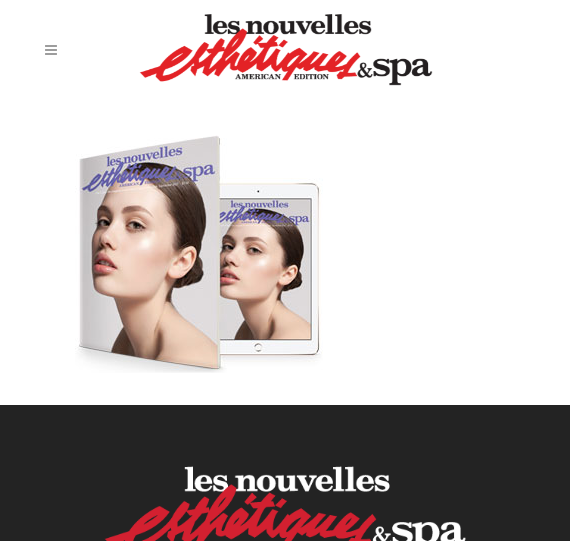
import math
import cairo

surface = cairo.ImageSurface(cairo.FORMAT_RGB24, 570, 541)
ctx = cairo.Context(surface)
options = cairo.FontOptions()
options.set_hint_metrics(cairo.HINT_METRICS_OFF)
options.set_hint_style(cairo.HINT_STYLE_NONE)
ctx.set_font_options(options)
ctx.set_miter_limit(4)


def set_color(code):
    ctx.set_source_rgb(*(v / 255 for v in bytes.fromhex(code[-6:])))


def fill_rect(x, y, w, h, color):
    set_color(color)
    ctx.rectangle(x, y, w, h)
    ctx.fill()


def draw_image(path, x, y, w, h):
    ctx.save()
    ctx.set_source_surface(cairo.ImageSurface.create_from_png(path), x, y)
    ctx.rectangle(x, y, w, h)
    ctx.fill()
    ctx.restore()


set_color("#ffffff")
ctx.paint()
draw_image("assets/img1.png", 45, 45, 12, 10)
draw_image("assets/img2.png", 139, 14, 294, 72)
draw_image("assets/img3.png", 75, 135, 248, 238)
fill_rect(0, 405, 570, 136, "#232323")
draw_image("assets/img4.png", 104, 466, 362, 75)
surface.write_to_png("output.png")
